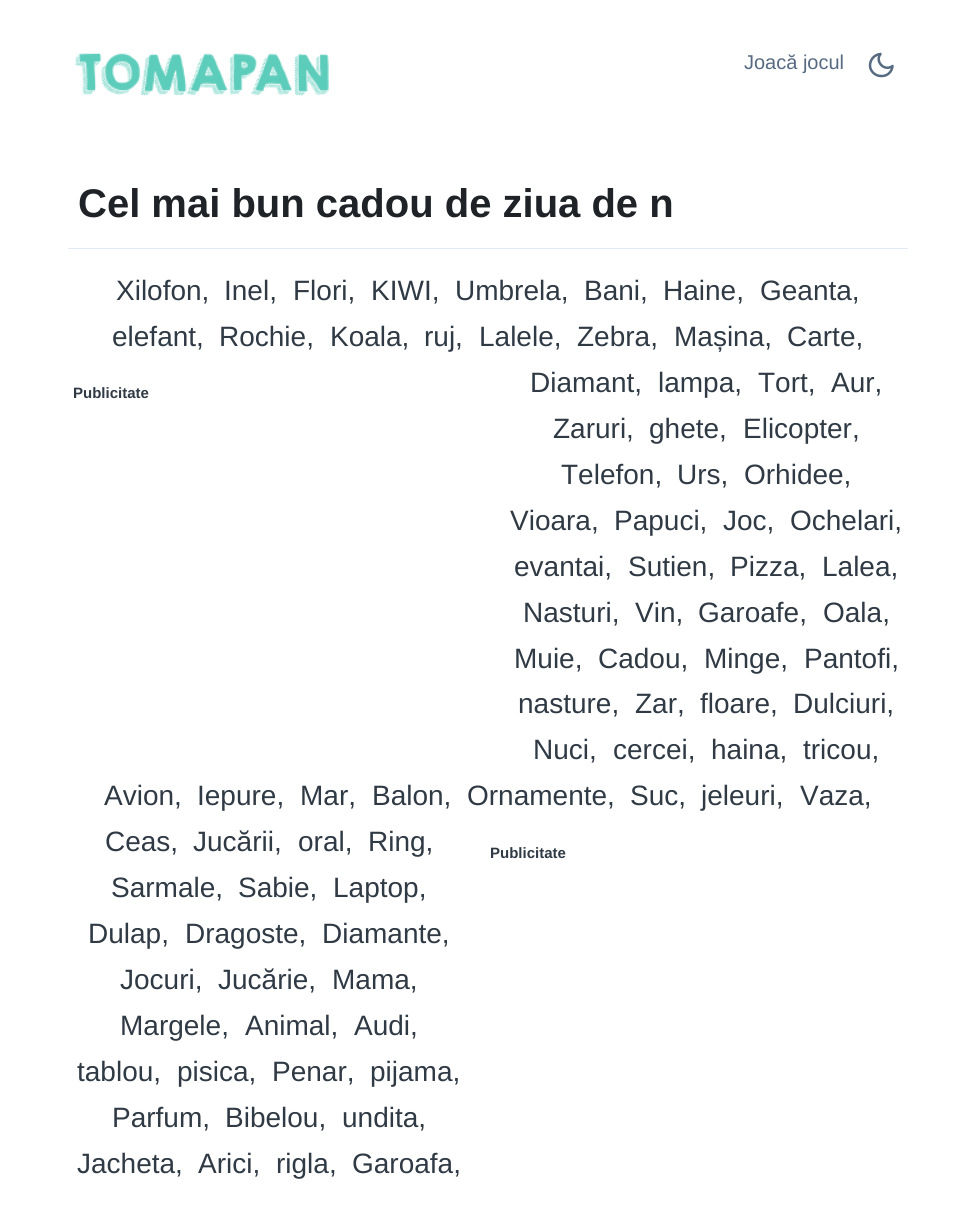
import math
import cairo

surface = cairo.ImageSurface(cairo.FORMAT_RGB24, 974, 1210)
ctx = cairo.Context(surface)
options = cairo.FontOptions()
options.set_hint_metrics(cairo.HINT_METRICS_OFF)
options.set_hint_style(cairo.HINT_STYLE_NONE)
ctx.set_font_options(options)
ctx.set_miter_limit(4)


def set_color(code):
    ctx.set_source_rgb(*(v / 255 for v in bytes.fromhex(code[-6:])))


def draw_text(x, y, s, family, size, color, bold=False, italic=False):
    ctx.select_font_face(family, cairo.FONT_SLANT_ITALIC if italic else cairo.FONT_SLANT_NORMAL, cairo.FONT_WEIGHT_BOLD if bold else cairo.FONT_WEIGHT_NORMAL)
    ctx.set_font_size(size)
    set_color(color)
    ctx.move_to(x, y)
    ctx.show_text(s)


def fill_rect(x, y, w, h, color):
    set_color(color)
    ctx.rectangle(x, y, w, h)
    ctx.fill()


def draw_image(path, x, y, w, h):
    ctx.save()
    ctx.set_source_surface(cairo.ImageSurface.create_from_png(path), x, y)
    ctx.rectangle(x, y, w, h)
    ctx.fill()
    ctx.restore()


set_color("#ffffff")
ctx.paint()
draw_image("assets/img1.png", 75, 53, 254, 43)
draw_text(744, 69, "Joacă jocul", "Liberation Sans", 20, "#566a81")
ctx.new_path()
ctx.move_to(892.5, 66)
ctx.curve_to(892, 72, 887, 76.5, 881, 76)
ctx.curve_to(875, 76, 870, 71, 870, 65.5)
ctx.curve_to(870, 59.5, 874.5, 54.5, 880.5, 54)
ctx.curve_to(874.5, 61.5, 884.5, 72, 892.5, 66)
ctx.close_path()
ctx.set_line_width(2.5)
ctx.set_line_cap(cairo.LINE_CAP_ROUND)
ctx.set_line_join(cairo.LINE_JOIN_ROUND)
ctx.stroke()
draw_text(78, 217, "Cel mai bun cadou de ziua de n", "Liberation Sans", 40, "#1f2328", bold=True)
fill_rect(68, 248, 840, 1, "#e2ecf8")
draw_text(116, 300, "Xilofon,", "Liberation Sans", 28, "#303a45")
draw_text(224, 300, "Inel,", "Liberation Sans", 28, "#303a45")
draw_text(293, 300, "Flori,", "Liberation Sans", 28, "#303a45")
draw_text(371, 300, "KIWI,", "Liberation Sans", 28, "#303a45")
draw_text(455, 300, "Umbrela,", "Liberation Sans", 28, "#303a45")
draw_text(584, 300, "Bani,", "Liberation Sans", 28, "#303a45")
draw_text(663, 300, "Haine,", "Liberation Sans", 28, "#303a45")
draw_text(760, 300, "Geanta,", "Liberation Sans", 28, "#303a45")
draw_text(112, 346, "elefant,", "Liberation Sans", 28, "#303a45")
draw_text(219, 346, "Rochie,", "Liberation Sans", 28, "#303a45")
draw_text(330, 346, "Koala,", "Liberation Sans", 28, "#303a45")
draw_text(424, 346, "ruj,", "Liberation Sans", 28, "#303a45")
draw_text(479, 346, "Lalele,", "Liberation Sans", 28, "#303a45")
draw_text(577, 346, "Zebra,", "Liberation Sans", 28, "#303a45")
draw_text(674, 346, "Mașina,", "Liberation Sans", 28, "#303a45")
draw_text(787, 346, "Carte,", "Liberation Sans", 28, "#303a45")
draw_text(73, 398, "Publicitate", "Liberation Sans", 15, "#303a45", bold=True)
draw_text(530, 392, "Diamant,", "Liberation Sans", 28, "#303a45")
draw_text(658, 392, "lampa,", "Liberation Sans", 28, "#303a45")
draw_text(758, 392, "Tort,", "Liberation Sans", 28, "#303a45")
draw_text(831, 392, "Aur,", "Liberation Sans", 28, "#303a45")
draw_text(553, 438, "Zaruri,", "Liberation Sans", 28, "#303a45")
draw_text(649, 438, "ghete,", "Liberation Sans", 28, "#303a45")
draw_text(743, 438, "Elicopter,", "Liberation Sans", 28, "#303a45")
draw_text(561, 484, "Telefon,", "Liberation Sans", 28, "#303a45")
draw_text(677, 484, "Urs,", "Liberation Sans", 28, "#303a45")
draw_text(744, 484, "Orhidee,", "Liberation Sans", 28, "#303a45")
draw_text(510, 530, "Vioara,", "Liberation Sans", 28, "#303a45")
draw_text(614, 530, "Papuci,", "Liberation Sans", 28, "#303a45")
draw_text(723, 530, "Joc,", "Liberation Sans", 28, "#303a45")
draw_text(790, 530, "Ochelari,", "Liberation Sans", 28, "#303a45")
draw_text(514, 576, "evantai,", "Liberation Sans", 28, "#303a45")
draw_text(628, 576, "Sutien,", "Liberation Sans", 28, "#303a45")
draw_text(730, 576, "Pizza,", "Liberation Sans", 28, "#303a45")
draw_text(822, 576, "Lalea,", "Liberation Sans", 28, "#303a45")
draw_text(523, 622, "Nasturi,", "Liberation Sans", 28, "#303a45")
draw_text(635, 622, "Vin,", "Liberation Sans", 28, "#303a45")
draw_text(698, 622, "Garoafe,", "Liberation Sans", 28, "#303a45")
draw_text(823, 622, "Oala,", "Liberation Sans", 28, "#303a45")
draw_text(514, 668, "Muie,", "Liberation Sans", 28, "#303a45")
draw_text(598, 668, "Cadou,", "Liberation Sans", 28, "#303a45")
draw_text(704, 668, "Minge,", "Liberation Sans", 28, "#303a45")
draw_text(804, 668, "Pantofi,", "Liberation Sans", 28, "#303a45")
draw_text(518, 713, "nasture,", "Liberation Sans", 28, "#303a45")
draw_text(635, 713, "Zar,", "Liberation Sans", 28, "#303a45")
draw_text(700, 713, "floare,", "Liberation Sans", 28, "#303a45")
draw_text(793, 713, "Dulciuri,", "Liberation Sans", 28, "#303a45")
draw_text(533, 759, "Nuci,", "Liberation Sans", 28, "#303a45")
draw_text(613, 759, "cercei,", "Liberation Sans", 28, "#303a45")
draw_text(711, 759, "haina,", "Liberation Sans", 28, "#303a45")
draw_text(803, 759, "tricou,", "Liberation Sans", 28, "#303a45")
draw_text(104, 805, "Avion,", "Liberation Sans", 28, "#303a45")
draw_text(197, 805, "Iepure,", "Liberation Sans", 28, "#303a45")
draw_text(300, 805, "Mar,", "Liberation Sans", 28, "#303a45")
draw_text(372, 805, "Balon,", "Liberation Sans", 28, "#303a45")
draw_text(467, 805, "Ornamente,", "Liberation Sans", 28, "#303a45")
draw_text(630, 805, "Suc,", "Liberation Sans", 28, "#303a45")
draw_text(701, 805, "jeleuri,", "Liberation Sans", 28, "#303a45")
draw_text(800, 805, "Vaza,", "Liberation Sans", 28, "#303a45")
draw_text(105, 851, "Ceas,", "Liberation Sans", 28, "#303a45")
draw_text(193, 851, "Jucării,", "Liberation Sans", 28, "#303a45")
draw_text(298, 851, "oral,", "Liberation Sans", 28, "#303a45")
draw_text(368, 851, "Ring,", "Liberation Sans", 28, "#303a45")
draw_text(490, 858, "Publicitate", "Liberation Sans", 15, "#303a45", bold=True)
draw_text(111, 897, "Sarmale,", "Liberation Sans", 28, "#303a45")
draw_text(238, 897, "Sabie,", "Liberation Sans", 28, "#303a45")
draw_text(333, 897, "Laptop,", "Liberation Sans", 28, "#303a45")
draw_text(88, 943, "Dulap,", "Liberation Sans", 28, "#303a45")
draw_text(185, 943, "Dragoste,", "Liberation Sans", 28, "#303a45")
draw_text(322, 943, "Diamante,", "Liberation Sans", 28, "#303a45")
draw_text(120, 989, "Jocuri,", "Liberation Sans", 28, "#303a45")
draw_text(218, 989, "Jucărie,", "Liberation Sans", 28, "#303a45")
draw_text(332, 989, "Mama,", "Liberation Sans", 28, "#303a45")
draw_text(120, 1035, "Margele,", "Liberation Sans", 28, "#303a45")
draw_text(245, 1035, "Animal,", "Liberation Sans", 28, "#303a45")
draw_text(354, 1035, "Audi,", "Liberation Sans", 28, "#303a45")
draw_text(77, 1081, "tablou,", "Liberation Sans", 28, "#303a45")
draw_text(177, 1081, "pisica,", "Liberation Sans", 28, "#303a45")
draw_text(272, 1081, "Penar,", "Liberation Sans", 28, "#303a45")
draw_text(370, 1081, "pijama,", "Liberation Sans", 28, "#303a45")
draw_text(112, 1127, "Parfum,", "Liberation Sans", 28, "#303a45")
draw_text(225, 1127, "Bibelou,", "Liberation Sans", 28, "#303a45")
draw_text(342, 1127, "undita,", "Liberation Sans", 28, "#303a45")
draw_text(77, 1173, "Jacheta,", "Liberation Sans", 28, "#303a45")
draw_text(198, 1173, "Arici,", "Liberation Sans", 28, "#303a45")
draw_text(276, 1173, "rigla,", "Liberation Sans", 28, "#303a45")
draw_text(352, 1173, "Garoafa,", "Liberation Sans", 28, "#303a45")
surface.write_to_png("output.png")
